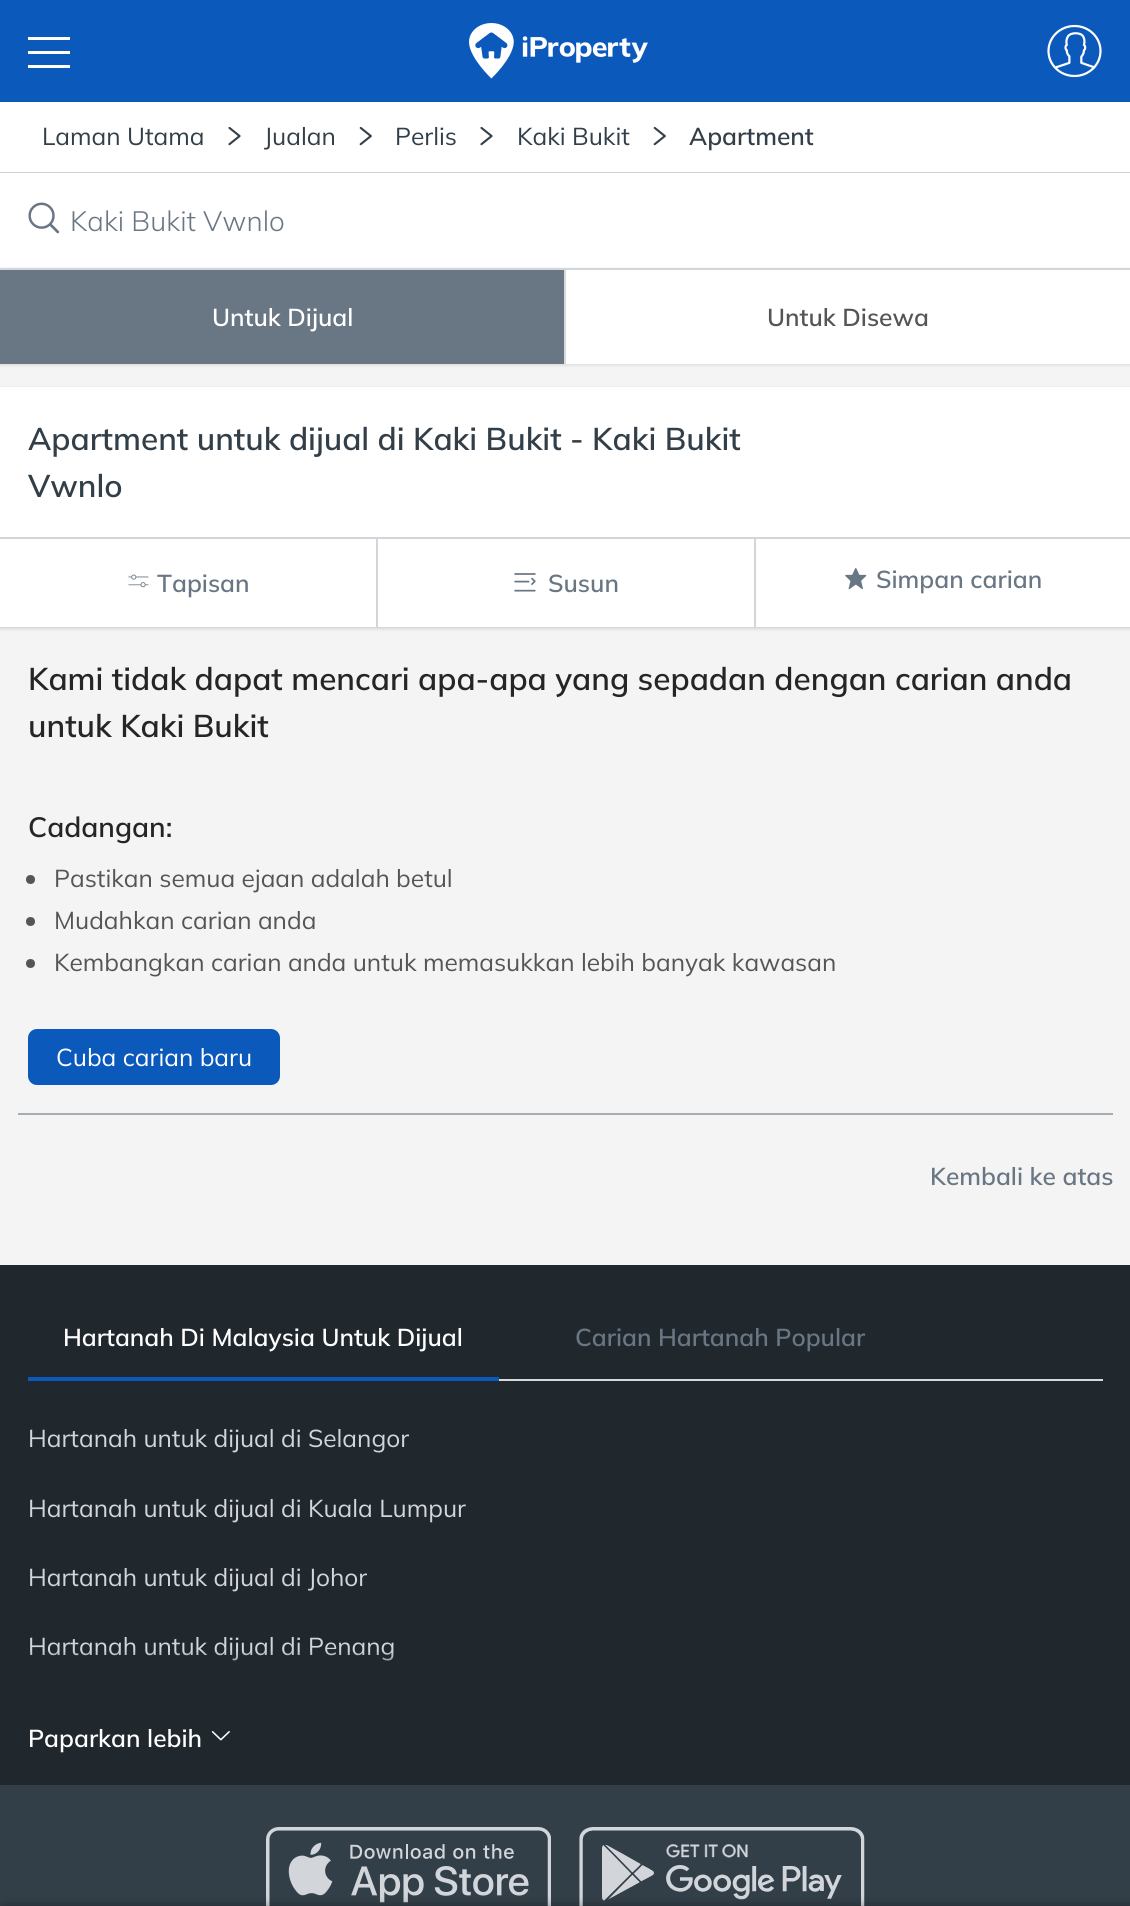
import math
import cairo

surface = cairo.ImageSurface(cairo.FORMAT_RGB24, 1130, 1906)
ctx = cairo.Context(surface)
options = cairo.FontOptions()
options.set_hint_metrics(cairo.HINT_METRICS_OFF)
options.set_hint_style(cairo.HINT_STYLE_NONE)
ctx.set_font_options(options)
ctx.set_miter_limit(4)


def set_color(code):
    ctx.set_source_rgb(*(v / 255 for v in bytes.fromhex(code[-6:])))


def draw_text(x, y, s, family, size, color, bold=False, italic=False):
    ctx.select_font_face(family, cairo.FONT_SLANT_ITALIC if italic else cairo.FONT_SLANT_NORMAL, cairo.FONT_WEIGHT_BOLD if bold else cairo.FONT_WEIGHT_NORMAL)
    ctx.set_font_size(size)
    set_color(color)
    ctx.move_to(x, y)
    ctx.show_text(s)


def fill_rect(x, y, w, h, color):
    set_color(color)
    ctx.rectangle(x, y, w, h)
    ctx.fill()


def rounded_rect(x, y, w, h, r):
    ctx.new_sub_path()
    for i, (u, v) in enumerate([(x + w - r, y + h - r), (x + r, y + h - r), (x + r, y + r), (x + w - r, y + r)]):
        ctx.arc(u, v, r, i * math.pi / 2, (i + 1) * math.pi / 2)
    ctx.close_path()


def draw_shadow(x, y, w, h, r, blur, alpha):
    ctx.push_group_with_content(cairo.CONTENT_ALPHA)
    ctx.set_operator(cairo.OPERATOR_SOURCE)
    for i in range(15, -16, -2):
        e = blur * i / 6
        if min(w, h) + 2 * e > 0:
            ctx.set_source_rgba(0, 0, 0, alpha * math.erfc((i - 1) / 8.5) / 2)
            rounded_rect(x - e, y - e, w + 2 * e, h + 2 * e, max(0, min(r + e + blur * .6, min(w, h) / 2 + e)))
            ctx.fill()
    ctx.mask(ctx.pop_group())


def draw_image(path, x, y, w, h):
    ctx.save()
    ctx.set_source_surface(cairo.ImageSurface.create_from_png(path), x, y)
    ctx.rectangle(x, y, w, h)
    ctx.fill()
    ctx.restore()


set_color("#f4f4f4")
ctx.paint()
fill_rect(0, 0, 1130, 102, "#0c59bc")
fill_rect(28, 37, 42, 3, "#ffffff")
fill_rect(28, 51, 42, 3, "#ffffff")
fill_rect(28, 65, 42, 3, "#ffffff")
draw_image("assets/img1.png", 469, 23, 179, 56)
draw_image("assets/img2.png", 1047, 24, 55, 54)
fill_rect(0, 102, 1130, 70, "#ffffff")
fill_rect(0, 172, 1130, 1, "#d2d5da")
draw_text(42, 145, "Laman Utama", "Mulish", 24.5, "#333f48")
draw_image("assets/img3.png", 228, 126, 13, 20)
draw_text(264, 145, "Jualan", "Mulish", 24.5, "#333f48")
draw_image("assets/img4.png", 359, 126, 13, 20)
draw_text(395, 145, "Perlis", "Mulish", 24.5, "#333f48")
draw_image("assets/img3.png", 480, 126, 13, 20)
draw_text(517, 145, "Kaki Bukit", "Mulish", 24.5, "#333f48")
draw_image("assets/img4.png", 653, 126, 13, 20)
draw_text(689, 145, "Apartment", "Mulish SemiBold", 24.5, "#333f48")
set_color("#000000")
draw_shadow(0, 175, 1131, 95, 0, 2, 0.2)
fill_rect(0, 173, 1130, 95, "#ffffff")
draw_image("assets/img5.png", 28, 202, 32, 32)
draw_text(70, 231, "Kaki Bukit Vwnlo", "Mulish Light", 28, "#697684")
set_color("#000000")
draw_shadow(0, 270, 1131, 94, 0, 2, 0.2)
fill_rect(0, 268, 1130, 2, "#d2d6da")
fill_rect(0, 270, 564, 94, "#697684")
draw_text(212, 326, "Untuk Dijual", "Mulish SemiBold", 24.5, "#ffffff")
fill_rect(566, 270, 564, 94, "#ffffff")
fill_rect(564, 270, 2, 94, "#d9d9d9")
draw_text(767, 326, "Untuk Disewa", "Mulish SemiBold", 24.5, "#555555")
set_color("#000000")
draw_shadow(0, 389, 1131, 239, 0, 2, 0.2)
fill_rect(0, 387, 1130, 240, "#ffffff")
draw_text(28, 450, "Apartment untuk dijual di Kaki Bukit - Kaki Bukit", "Mulish SemiBold", 31.5, "#333f48")
draw_text(28, 497, "Vwnlo", "Mulish SemiBold", 31.5, "#333f48")
fill_rect(0, 537, 1130, 2, "#d2d6da")
draw_image("assets/img6.png", 128, 574, 21, 14)
draw_text(157, 592, "Tapisan", "Mulish SemiBold", 24.5, "#697684")
fill_rect(376, 539, 2, 88, "#d2d6da")
draw_image("assets/img7.png", 514, 573, 22, 19)
draw_text(548, 592, "Susun", "Mulish SemiBold", 24.5, "#697684")
fill_rect(0, 1785, 1130, 121, "#333f48")
draw_image("assets/img10.png", 266, 1827, 285, 79)
draw_image("assets/img11.png", 579, 1827, 286, 79)
set_color("#000000")
draw_shadow(2, 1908, 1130, 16, 0, 6, 0.5)
fill_rect(754, 539, 2, 88, "#d2d6da")
draw_image("assets/img8.png", 845, 568, 22, 22)
draw_text(876, 588, "Simpan carian", "Mulish SemiBold", 24.5, "#697684")
draw_text(28, 690, "Kami tidak dapat mencari apa-apa yang sepadan dengan carian anda", "Mulish SemiBold", 31.5, "#252525")
draw_text(28, 737, "untuk Kaki Bukit", "Mulish SemiBold", 31.5, "#252525")
draw_text(28, 837, "Cadangan:", "Mulish SemiBold", 28, "#252525")
set_color("#555555")
ctx.new_path()
ctx.arc(30.5, 879.5, 4.5, 0, 2 * math.pi)
ctx.fill()
draw_text(54, 887, "Pastikan semua ejaan adalah betul", "Mulish", 24.5, "#555555")
ctx.new_path()
ctx.arc(30.5, 921.5, 4.5, 0, 2 * math.pi)
ctx.fill()
draw_text(54, 929, "Mudahkan carian anda", "Mulish", 24.5, "#555555")
ctx.new_path()
ctx.arc(30.5, 963.5, 4.5, 0, 2 * math.pi)
ctx.fill()
draw_text(54, 971, "Kembangkan carian anda untuk memasukkan lebih banyak kawasan", "Mulish", 24.5, "#555555")
set_color("#0c59bc")
rounded_rect(28, 1029, 252, 56, 9)
ctx.fill()
draw_text(56, 1066, "Cuba carian baru", "Mulish", 24.5, "#ffffff")
fill_rect(18, 1113, 1095, 2, "#a5adb5")
draw_text(930, 1185, "Kembali ke atas", "Mulish SemiBold", 24.5, "#697684")
fill_rect(0, 1265, 1130, 520, "#20282e")
fill_rect(499, 1379, 604, 2, "#d9d9d9")
draw_text(63, 1346, "Hartanah Di Malaysia Untuk Dijual", "Mulish SemiBold", 24.5, "#ffffff")
draw_text(575, 1346, "Carian Hartanah Popular", "Mulish SemiBold", 24.5, "#697684")
fill_rect(28, 1377, 471, 4, "#0c59bc")
draw_text(28, 1447, "Hartanah untuk dijual di Selangor", "Mulish", 24.5, "#d2d6da")
draw_text(28, 1517, "Hartanah untuk dijual di Kuala Lumpur", "Mulish", 24.5, "#d2d6da")
draw_text(28, 1586, "Hartanah untuk dijual di Johor", "Mulish", 24.5, "#d2d6da")
draw_text(28, 1655, "Hartanah untuk dijual di Penang", "Mulish", 24.5, "#d2d6da")
gradient = cairo.LinearGradient(565, 1650, 565, 1685)
gradient.add_color_stop_rgba(0, 0.125, 0.157, 0.18, 0)
gradient.add_color_stop_rgba(1, 0.125, 0.157, 0.18, 1)
ctx.set_source(gradient)
ctx.rectangle(30, 1651, 364, 10)
ctx.fill()
draw_text(28, 1747, "Paparkan lebih", "Mulish SemiBold", 24.5, "#ffffff")
draw_image("assets/img9.png", 211, 1731, 19, 10)
surface.write_to_png("output.png")
